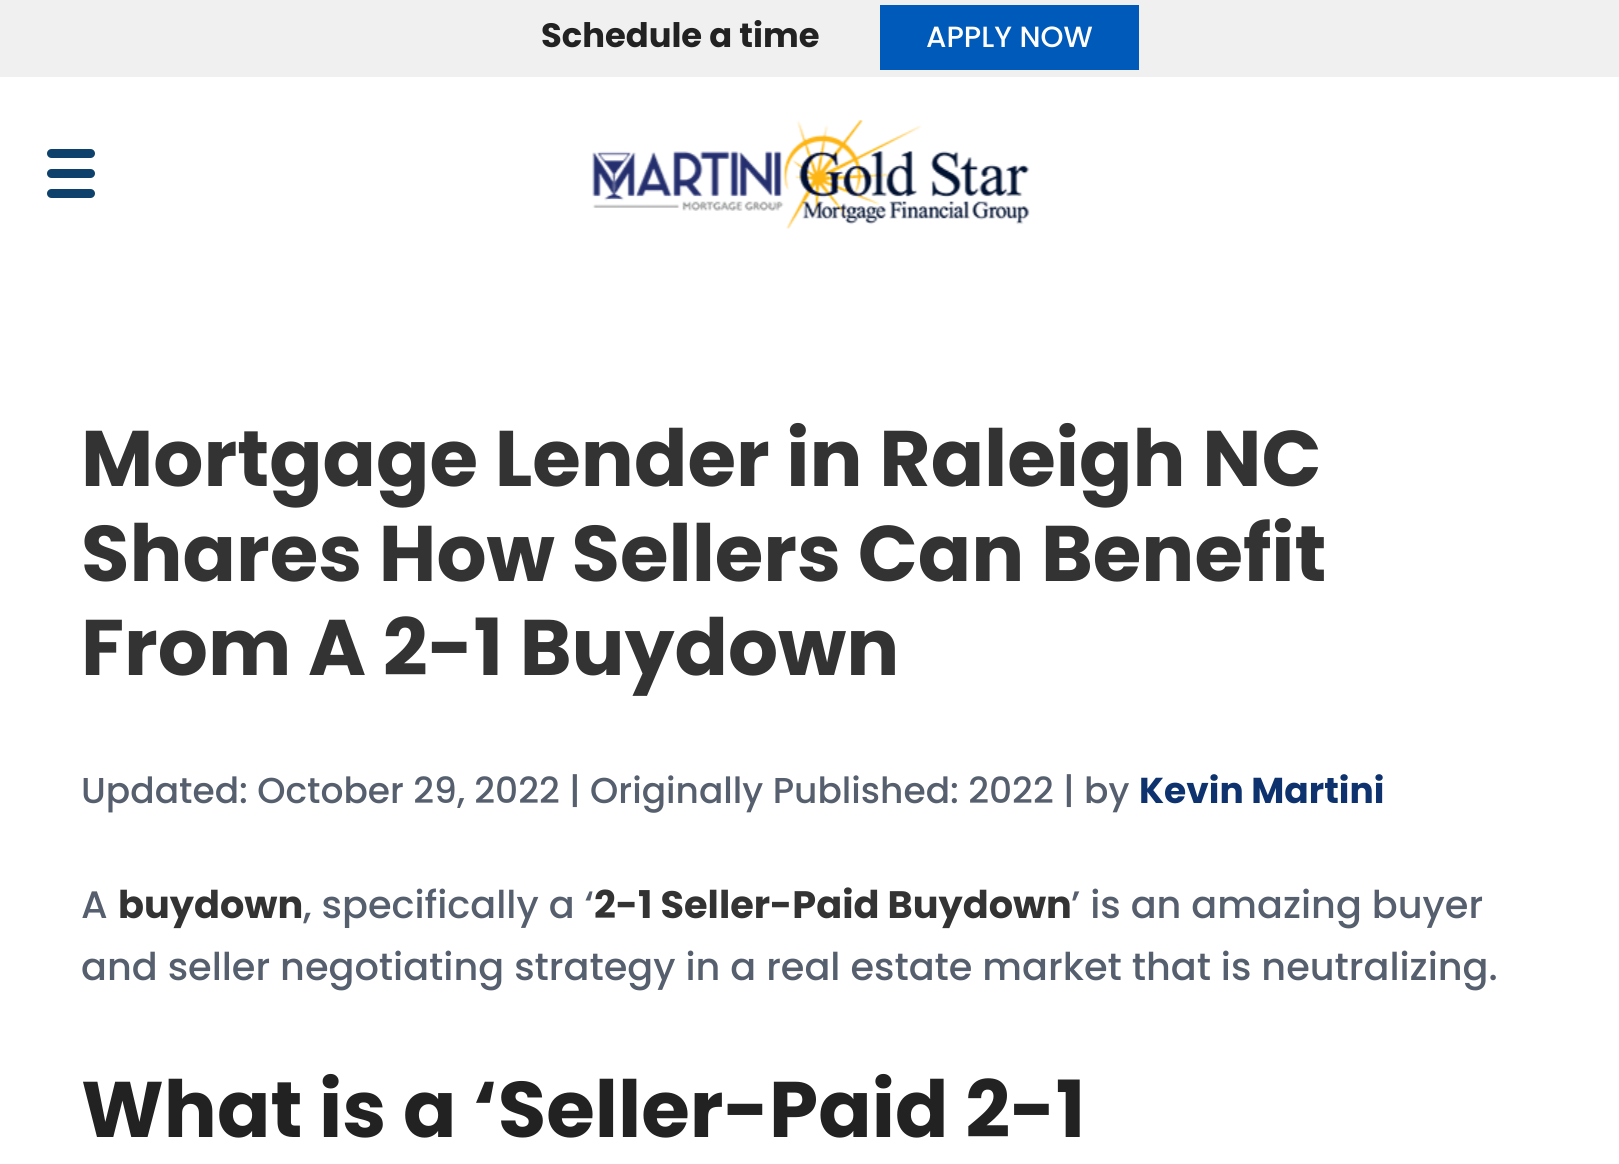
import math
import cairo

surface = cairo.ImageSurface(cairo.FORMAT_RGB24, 1619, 1164)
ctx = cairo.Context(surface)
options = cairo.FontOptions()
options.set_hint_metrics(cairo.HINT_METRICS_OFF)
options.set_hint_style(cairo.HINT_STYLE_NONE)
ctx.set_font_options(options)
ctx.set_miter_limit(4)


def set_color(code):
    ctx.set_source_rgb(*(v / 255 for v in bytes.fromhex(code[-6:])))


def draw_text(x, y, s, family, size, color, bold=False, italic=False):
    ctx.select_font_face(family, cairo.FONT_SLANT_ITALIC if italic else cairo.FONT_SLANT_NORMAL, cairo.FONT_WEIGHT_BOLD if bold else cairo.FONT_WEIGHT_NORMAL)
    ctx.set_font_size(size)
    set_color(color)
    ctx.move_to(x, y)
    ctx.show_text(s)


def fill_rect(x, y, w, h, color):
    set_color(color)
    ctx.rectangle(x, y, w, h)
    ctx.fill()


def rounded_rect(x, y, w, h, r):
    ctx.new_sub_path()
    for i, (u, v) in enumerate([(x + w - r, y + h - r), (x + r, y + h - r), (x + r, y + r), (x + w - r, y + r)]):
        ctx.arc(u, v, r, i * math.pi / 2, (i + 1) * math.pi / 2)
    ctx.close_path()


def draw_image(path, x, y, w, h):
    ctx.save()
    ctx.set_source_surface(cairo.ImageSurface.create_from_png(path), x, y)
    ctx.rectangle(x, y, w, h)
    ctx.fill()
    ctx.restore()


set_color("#ffffff")
ctx.paint()
fill_rect(0, 0, 1619, 77, "#f0f0f0")
draw_text(541, 47, "Schedule a time", "Poppins", 33.75, "#222222", bold=True)
fill_rect(880, 5, 259, 65, "#005aba")
draw_text(926, 47, "APPLY NOW", "Poppins Medium", 29.25, "#ffffff")
set_color("#0e426d")
rounded_rect(47, 149, 48, 9, 4.5)
ctx.fill()
rounded_rect(47, 169, 48, 9, 4.5)
ctx.fill()
rounded_rect(47, 189, 48, 9, 4.5)
ctx.fill()
draw_image("assets/img1.png", 592, 120, 438, 109)
draw_text(81, 486, "Mortgage Lender in Raleigh NC", "Poppins", 78.75, "#333333", bold=True)
draw_text(81, 581, "Shares How Sellers Can Benefit", "Poppins", 78.75, "#333333", bold=True)
draw_text(81, 675, "From A 2-1 Buydown", "Poppins", 78.75, "#333333", bold=True)
draw_text(81, 803, "Updated: October 29, 2022 | Originally Published: 2022 | by", "Poppins Medium", 36, "#565f6d")
draw_text(1139, 803, "Kevin Martini", "Poppins", 36, "#0d326d", bold=True)
draw_text(81, 918, "A", "Poppins Medium", 38.25, "#565f6d")
draw_text(118, 918, "buydown", "Poppins", 38.25, "#333333", bold=True)
draw_text(303, 918, ", specifically a ‘", "Poppins Medium", 38.25, "#565f6d")
draw_text(594, 918, "2-1 Seller-Paid Buydown", "Poppins", 38.25, "#333333", bold=True)
draw_text(1071, 918, "’ is an amazing buyer", "Poppins Medium", 38.25, "#565f6d")
draw_text(81, 980, "and seller negotiating strategy in a real estate market that is neutralizing.", "Poppins Medium", 38.25, "#565f6d")
draw_text(81, 1137, "What is a ‘Seller-Paid 2-1", "Poppins", 78.75, "#222222", bold=True)
surface.write_to_png("output.png")
